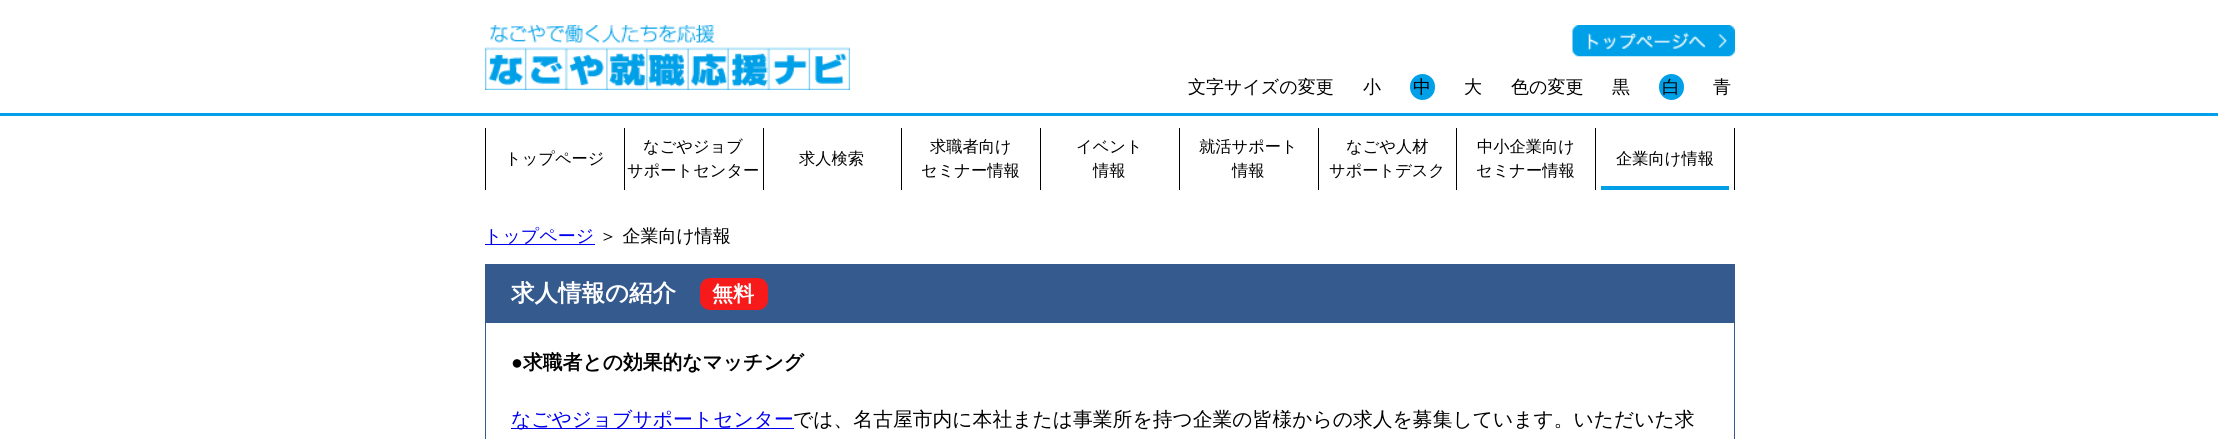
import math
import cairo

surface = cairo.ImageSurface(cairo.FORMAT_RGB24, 2218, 439)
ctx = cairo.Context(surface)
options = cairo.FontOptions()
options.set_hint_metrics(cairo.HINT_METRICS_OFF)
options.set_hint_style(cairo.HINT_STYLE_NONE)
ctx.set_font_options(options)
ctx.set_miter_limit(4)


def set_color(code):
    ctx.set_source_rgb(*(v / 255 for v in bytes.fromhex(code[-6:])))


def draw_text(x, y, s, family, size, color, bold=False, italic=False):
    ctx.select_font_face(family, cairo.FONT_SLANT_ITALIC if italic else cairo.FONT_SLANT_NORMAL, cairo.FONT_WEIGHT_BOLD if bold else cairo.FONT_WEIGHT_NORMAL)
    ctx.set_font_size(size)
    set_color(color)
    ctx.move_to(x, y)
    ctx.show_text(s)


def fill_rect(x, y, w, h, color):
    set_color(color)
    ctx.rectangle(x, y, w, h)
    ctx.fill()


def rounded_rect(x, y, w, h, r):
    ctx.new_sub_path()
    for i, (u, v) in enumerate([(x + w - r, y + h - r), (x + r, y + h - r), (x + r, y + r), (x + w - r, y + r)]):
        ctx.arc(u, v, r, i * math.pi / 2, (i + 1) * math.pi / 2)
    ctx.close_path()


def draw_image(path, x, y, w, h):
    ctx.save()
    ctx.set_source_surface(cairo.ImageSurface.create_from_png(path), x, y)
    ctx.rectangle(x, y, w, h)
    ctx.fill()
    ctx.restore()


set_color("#ffffff")
ctx.paint()
draw_image("assets/img1.png", 485, 25, 365, 65)
draw_image("assets/img2.png", 1572, 25, 163, 32)
draw_text(1188, 93, "文字サイズの変更", "WenQuanYi Zen Hei Medium", 18, "#000000")
draw_text(1363, 93, "小", "WenQuanYi Zen Hei Medium", 18, "#000000")
set_color("#00a0e9")
rounded_rect(1410, 74, 25, 26, 12.5)
ctx.fill()
draw_text(1413, 93, "中", "WenQuanYi Zen Hei Medium", 18, "#000000")
draw_text(1464, 93, "大", "WenQuanYi Zen Hei Medium", 18, "#000000")
draw_text(1511, 93, "色の変更", "WenQuanYi Zen Hei Medium", 18, "#000000")
draw_text(1612, 93, "黒", "WenQuanYi Zen Hei Medium", 18, "#000000")
set_color("#00a0e9")
rounded_rect(1659, 74, 25, 26, 12.5)
ctx.fill()
draw_text(1662, 93, "白", "WenQuanYi Zen Hei Medium", 18, "#000000")
draw_text(1713, 93, "青", "WenQuanYi Zen Hei Medium", 18, "#000000")
fill_rect(0, 113, 2218, 3, "#00a0e9")
fill_rect(485, 128, 1, 62, "#000000")
draw_text(505, 164, "トップページ", "WenQuanYi Zen Hei Medium", 16.25, "#000000")
fill_rect(624, 128, 1, 62, "#000000")
draw_text(643, 152, "なごやジョブ", "WenQuanYi Zen Hei Medium", 16.25, "#000000")
draw_text(627, 176, "サポートセンター", "WenQuanYi Zen Hei Medium", 16.25, "#000000")
fill_rect(763, 128, 1, 62, "#000000")
draw_text(799, 164, "求人検索", "WenQuanYi Zen Hei Medium", 16.25, "#000000")
fill_rect(901, 128, 1, 62, "#000000")
draw_text(930, 152, "求職者向け", "WenQuanYi Zen Hei Medium", 16.25, "#000000")
draw_text(921, 176, "セミナー情報", "WenQuanYi Zen Hei Medium", 16.25, "#000000")
fill_rect(1040, 128, 1, 62, "#000000")
draw_text(1076, 152, "イベント", "WenQuanYi Zen Hei Medium", 16.25, "#000000")
draw_text(1093, 176, "情報", "WenQuanYi Zen Hei Medium", 16.25, "#000000")
fill_rect(1179, 128, 1, 62, "#000000")
draw_text(1199, 152, "就活サポート", "WenQuanYi Zen Hei Medium", 16.25, "#000000")
draw_text(1232, 176, "情報", "WenQuanYi Zen Hei Medium", 16.25, "#000000")
fill_rect(1318, 128, 1, 62, "#000000")
draw_text(1346, 152, "なごや人材", "WenQuanYi Zen Hei Medium", 16.25, "#000000")
draw_text(1329, 176, "サポートデスク", "WenQuanYi Zen Hei Medium", 16.25, "#000000")
fill_rect(1456, 128, 1, 62, "#000000")
draw_text(1477, 152, "中小企業向け", "WenQuanYi Zen Hei Medium", 16.25, "#000000")
draw_text(1476, 176, "セミナー情報", "WenQuanYi Zen Hei Medium", 16.25, "#000000")
fill_rect(1734, 128, 1, 62, "#000000")
fill_rect(1595, 128, 1, 62, "#000000")
draw_text(1616, 164, "企業向け情報", "WenQuanYi Zen Hei Medium", 16.25, "#000000")
fill_rect(1601, 186, 128, 4, "#00a0e9")
fill_rect(485, 244, 110, 1, "#0000ee")
draw_text(484, 242, "トップページ", "WenQuanYi Zen Hei Medium", 18, "#0000ee")
draw_text(599, 242, "＞ 企業向け情報", "WenQuanYi Zen Hei Medium", 18, "#000000")
ctx.rectangle(485.5, 264.5, 1249, 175)
set_color("#345a8e")
ctx.set_line_width(1)
ctx.stroke()
fill_rect(486, 265, 1248, 58, "#345a8e")
draw_text(511, 301, "求人情報の紹介", "WenQuanYi Zen Hei", 23.5, "#ffffff", bold=True)
set_color("#f61b1a")
rounded_rect(700, 278, 68, 32, 10)
ctx.fill()
draw_text(712, 301, "無料", "WenQuanYi Zen Hei", 21, "#ffffff", bold=True)
draw_text(511, 369, "●", "Liberation Sans", 19.8, "#000000", bold=True)
draw_text(523, 369, "求職者との効果的なマッチング", "WenQuanYi Zen Hei", 19.8, "#000000", bold=True)
fill_rect(511, 428, 283, 1, "#0000ee")
draw_text(511, 426, "なごやジョブサポートセンター", "WenQuanYi Zen Hei Medium", 19.8, "#0000ee")
draw_text(793, 426, "では、名古屋市内に本社または事業所を持つ企業の皆様からの求人を募集しています。いただいた求", "WenQuanYi Zen Hei Medium", 19.8, "#000000")
surface.write_to_png("output.png")
